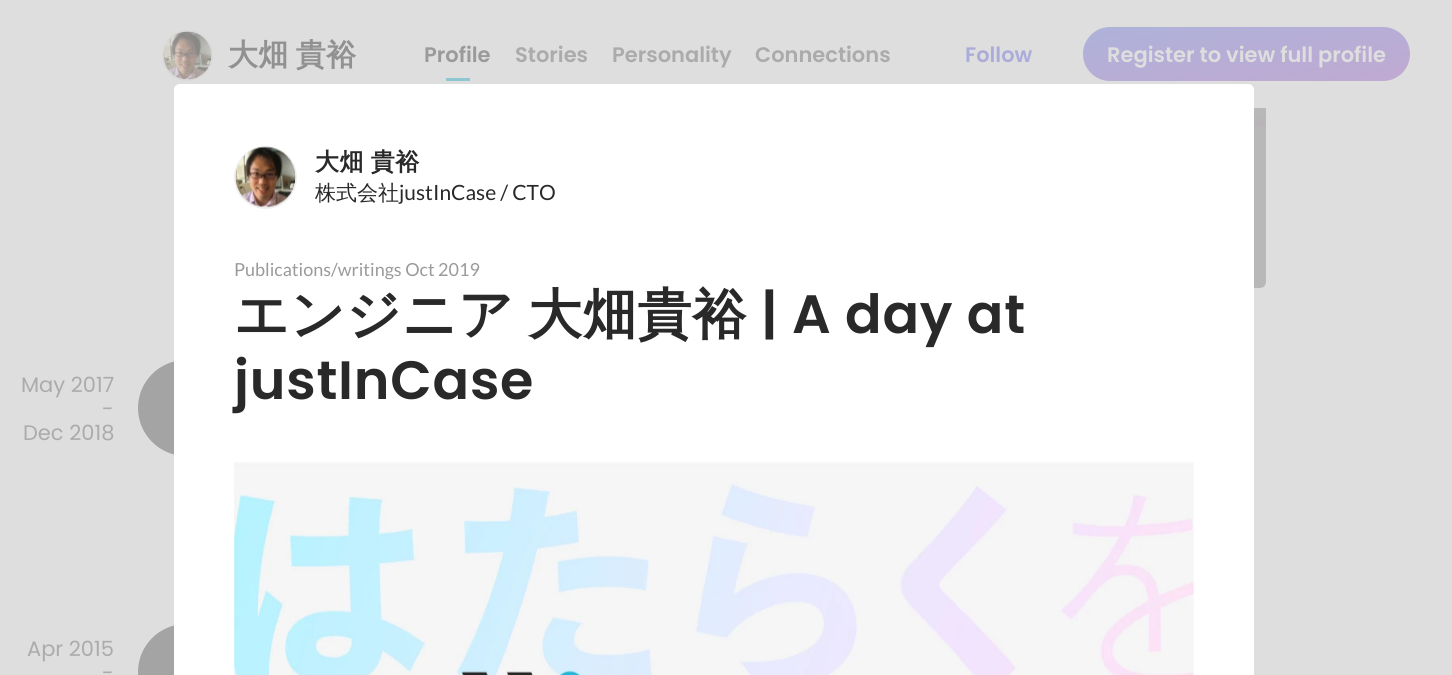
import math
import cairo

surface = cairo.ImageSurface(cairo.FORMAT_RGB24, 1452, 675)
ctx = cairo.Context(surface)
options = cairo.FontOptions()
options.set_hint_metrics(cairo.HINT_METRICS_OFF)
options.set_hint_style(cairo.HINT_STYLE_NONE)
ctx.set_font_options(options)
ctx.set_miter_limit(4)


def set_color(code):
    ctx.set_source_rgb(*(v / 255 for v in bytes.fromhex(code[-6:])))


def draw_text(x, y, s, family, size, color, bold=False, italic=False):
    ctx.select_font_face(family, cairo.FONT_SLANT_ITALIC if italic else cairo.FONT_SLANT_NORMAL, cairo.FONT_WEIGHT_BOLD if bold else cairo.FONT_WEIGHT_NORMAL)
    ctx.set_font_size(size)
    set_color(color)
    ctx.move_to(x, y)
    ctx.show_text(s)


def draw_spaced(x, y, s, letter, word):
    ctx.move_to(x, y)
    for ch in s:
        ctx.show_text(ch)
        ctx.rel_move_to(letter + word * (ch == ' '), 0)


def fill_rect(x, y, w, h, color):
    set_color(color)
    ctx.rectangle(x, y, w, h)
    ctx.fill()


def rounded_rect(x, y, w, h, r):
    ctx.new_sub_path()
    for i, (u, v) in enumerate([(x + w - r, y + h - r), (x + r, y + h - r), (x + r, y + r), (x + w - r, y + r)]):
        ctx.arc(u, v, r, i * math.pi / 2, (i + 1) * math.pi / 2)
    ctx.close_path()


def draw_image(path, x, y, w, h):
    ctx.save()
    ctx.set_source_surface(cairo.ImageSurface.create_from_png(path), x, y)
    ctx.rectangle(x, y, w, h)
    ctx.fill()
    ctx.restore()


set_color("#dedede")
ctx.paint()
ctx.arc(187.5, 55.5, 24.5, 0, 2 * math.pi)
set_color("#d9d9d9")
ctx.stroke()
draw_image("assets/img1.png", 163, 31, 49, 49)
ctx.select_font_face("WenQuanYi Zen Hei", cairo.FONT_SLANT_NORMAL, cairo.FONT_WEIGHT_BOLD)
ctx.set_font_size(30)
set_color("#919191")
draw_spaced(228, 65, "大畑 貴裕", 0.25, -2)
draw_text(424, 62, "Profile", "Poppins SemiBold", 21, "#9a9a9a")
fill_rect(446, 78, 24, 3, "#8ec7d1")
draw_text(515, 62, "Stories", "Poppins SemiBold", 21, "#ababab")
draw_text(612, 62, "Personality", "Poppins SemiBold", 21, "#ababab")
draw_text(755, 62, "Connections", "Poppins SemiBold", 21, "#ababab")
draw_text(965, 62, "Follow", "Poppins SemiBold", 21, "#acacda")
gradient = cairo.LinearGradient(1238, 1.4, 1255, 107)
gradient.add_color_stop_rgba(0, 0.682, 0.698, 0.855, 1)
gradient.add_color_stop_rgba(1, 0.753, 0.663, 0.82, 1)
ctx.set_source(gradient)
rounded_rect(1083, 27, 327, 54, 27)
ctx.fill()
draw_text(1107, 62, "Register to view full profile", "Poppins SemiBold", 21, "#dedede")
set_color("#a4a4a4")
ctx.new_path()
ctx.arc(186, 408, 48, 0, 2 * math.pi)
ctx.fill()
ctx.arc(186, 672, 48, 0, 2 * math.pi)
ctx.fill()
set_color("#ffffff")
ctx.new_path()
ctx.move_to(180, 84)
ctx.line_to(1248, 84)
ctx.curve_to(1251.5, 84, 1254, 86.5, 1254, 90)
ctx.line_to(1254, 675)
ctx.line_to(174, 675)
ctx.line_to(174, 90)
ctx.curve_to(174, 86.5, 176.5, 84, 180, 84)
ctx.close_path()
ctx.fill()
ctx.arc(265.5, 177.5, 30.5, 0, 2 * math.pi)
set_color("#f0f0f0")
ctx.stroke()
draw_image("assets/img2.png", 235, 146, 61, 62)
ctx.select_font_face("WenQuanYi Zen Hei", cairo.FONT_SLANT_NORMAL, cairo.FONT_WEIGHT_BOLD)
ctx.set_font_size(24)
set_color("#292929")
draw_spaced(315, 170, "大畑 貴裕", 0.5, -1)
draw_text(315, 200, "株式会社", "WenQuanYi Zen Hei Medium", 21, "#292929")
draw_text(399, 200, "justInCase / CTO", "Lato", 21, "#292929")
draw_text(234, 276, "Publications/writings Oct 2019", "Lato", 18, "#9a9a9a")
ctx.select_font_face("WenQuanYi Zen Hei", cairo.FONT_SLANT_NORMAL, cairo.FONT_WEIGHT_BOLD)
ctx.set_font_size(54)
set_color("#292929")
draw_spaced(234, 333, "エンジニア", 0.75, 0)
draw_spaced(528, 333, "大畑貴裕", 0.75, 0)
ctx.select_font_face("Poppins SemiBold")
draw_spaced(761, 333, "| A day at", 0.75, 0)
draw_spaced(234, 399, "justInCase", 0.75, 0)
draw_image("assets/img3.png", 234, 462, 960, 213)
draw_image("assets/img4.png", 1254, 108, 12, 180)
draw_text(21, 392, "May 2017", "Poppins", 21, "#ababab")
draw_text(102, 416, "-", "Poppins", 21, "#ababab")
draw_text(23, 440, "Dec 2018", "Poppins", 21, "#ababab")
draw_text(27, 656, "Apr 2015", "Poppins", 21, "#ababab")
draw_text(102, 680, "-", "Poppins", 21, "#ababab")
surface.write_to_png("output.png")
